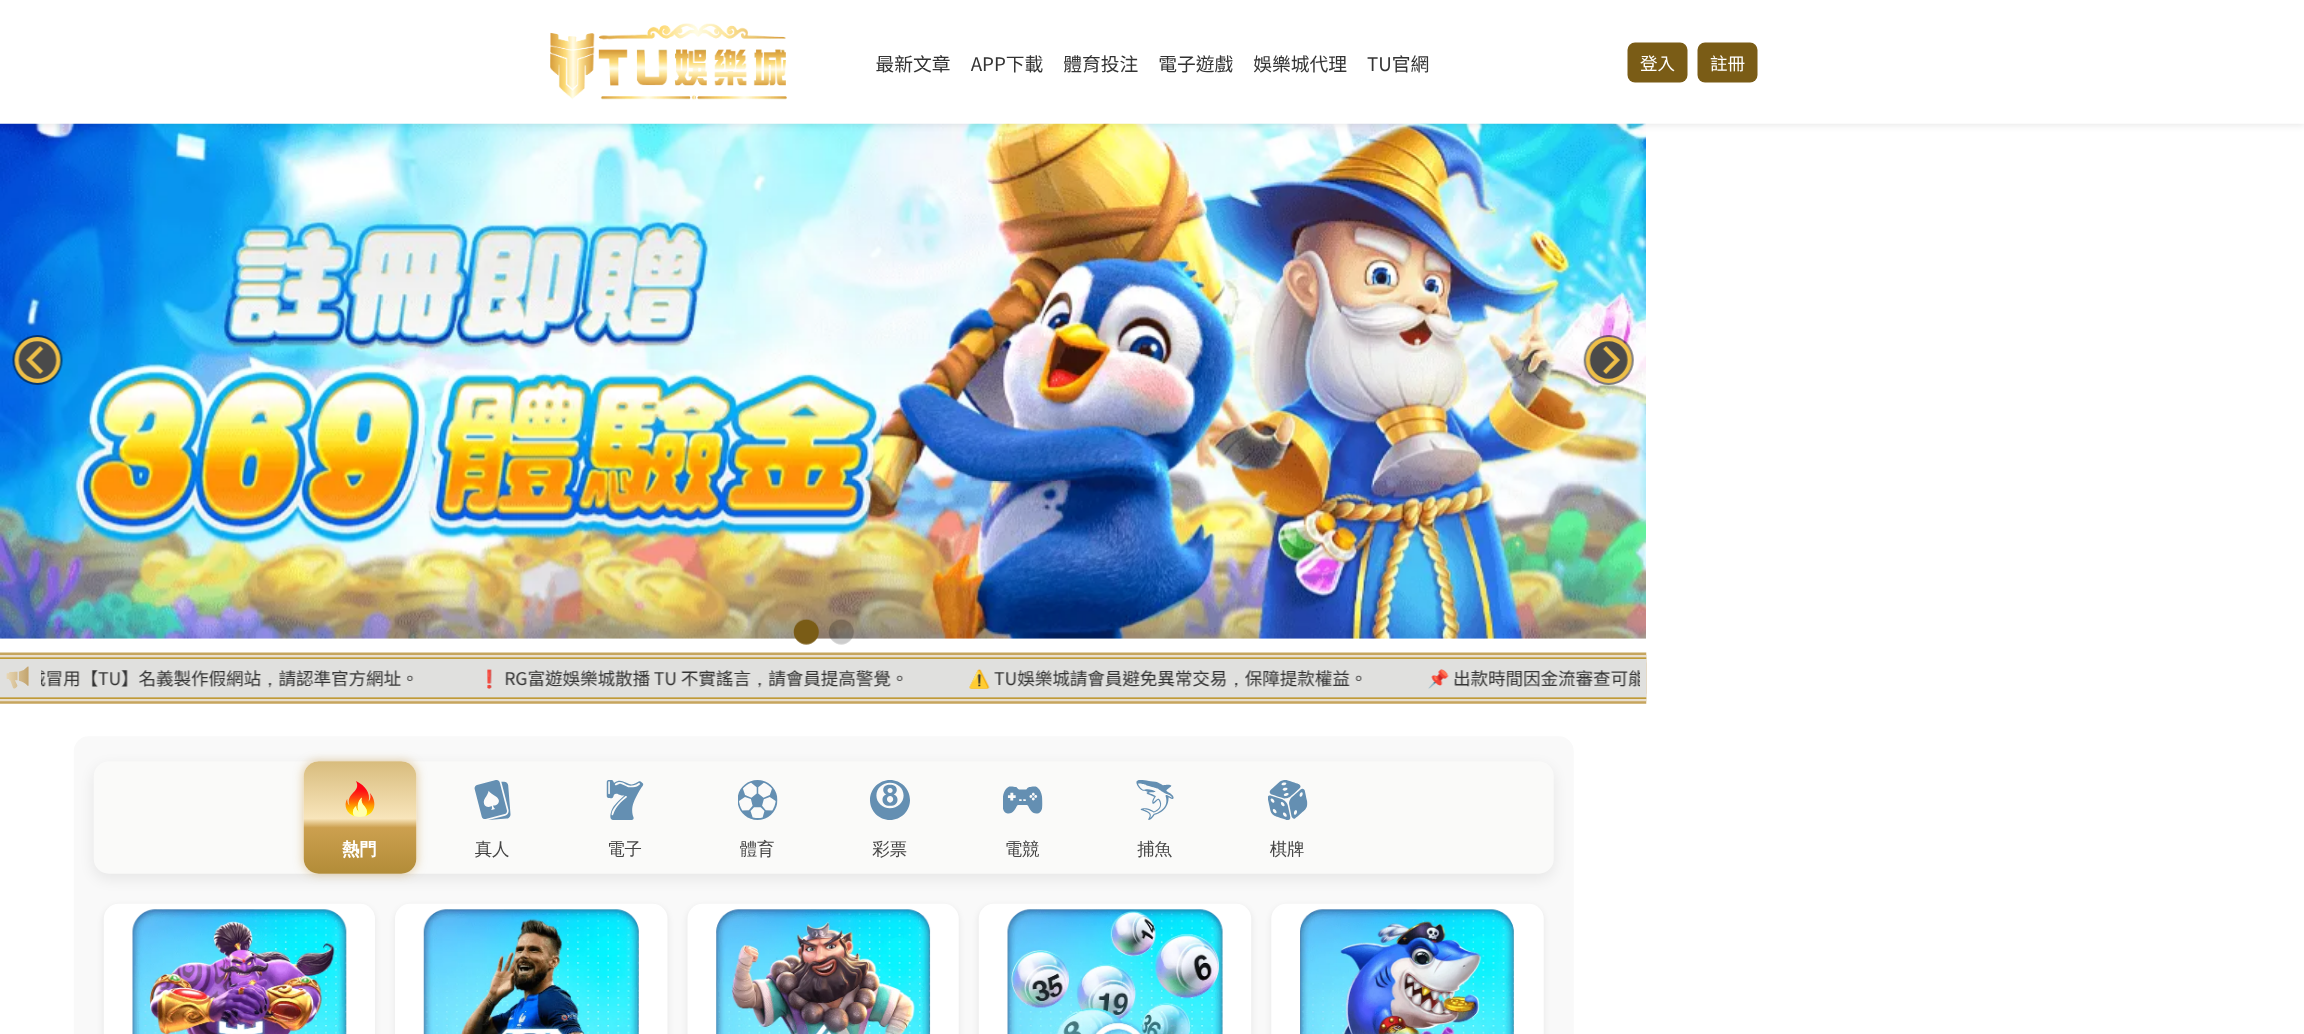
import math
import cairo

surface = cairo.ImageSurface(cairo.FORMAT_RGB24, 2304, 1034)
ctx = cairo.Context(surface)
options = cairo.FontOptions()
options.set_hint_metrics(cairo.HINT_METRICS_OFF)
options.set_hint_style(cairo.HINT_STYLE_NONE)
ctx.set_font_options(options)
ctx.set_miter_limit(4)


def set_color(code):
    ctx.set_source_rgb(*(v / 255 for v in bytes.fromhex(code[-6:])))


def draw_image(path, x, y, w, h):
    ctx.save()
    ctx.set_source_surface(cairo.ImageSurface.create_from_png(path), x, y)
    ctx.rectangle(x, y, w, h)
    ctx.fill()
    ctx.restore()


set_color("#ffffff")
ctx.paint()
draw_image("assets/img1.png", 0, 23, 2304, 1011)
surface.write_to_png("output.png")
